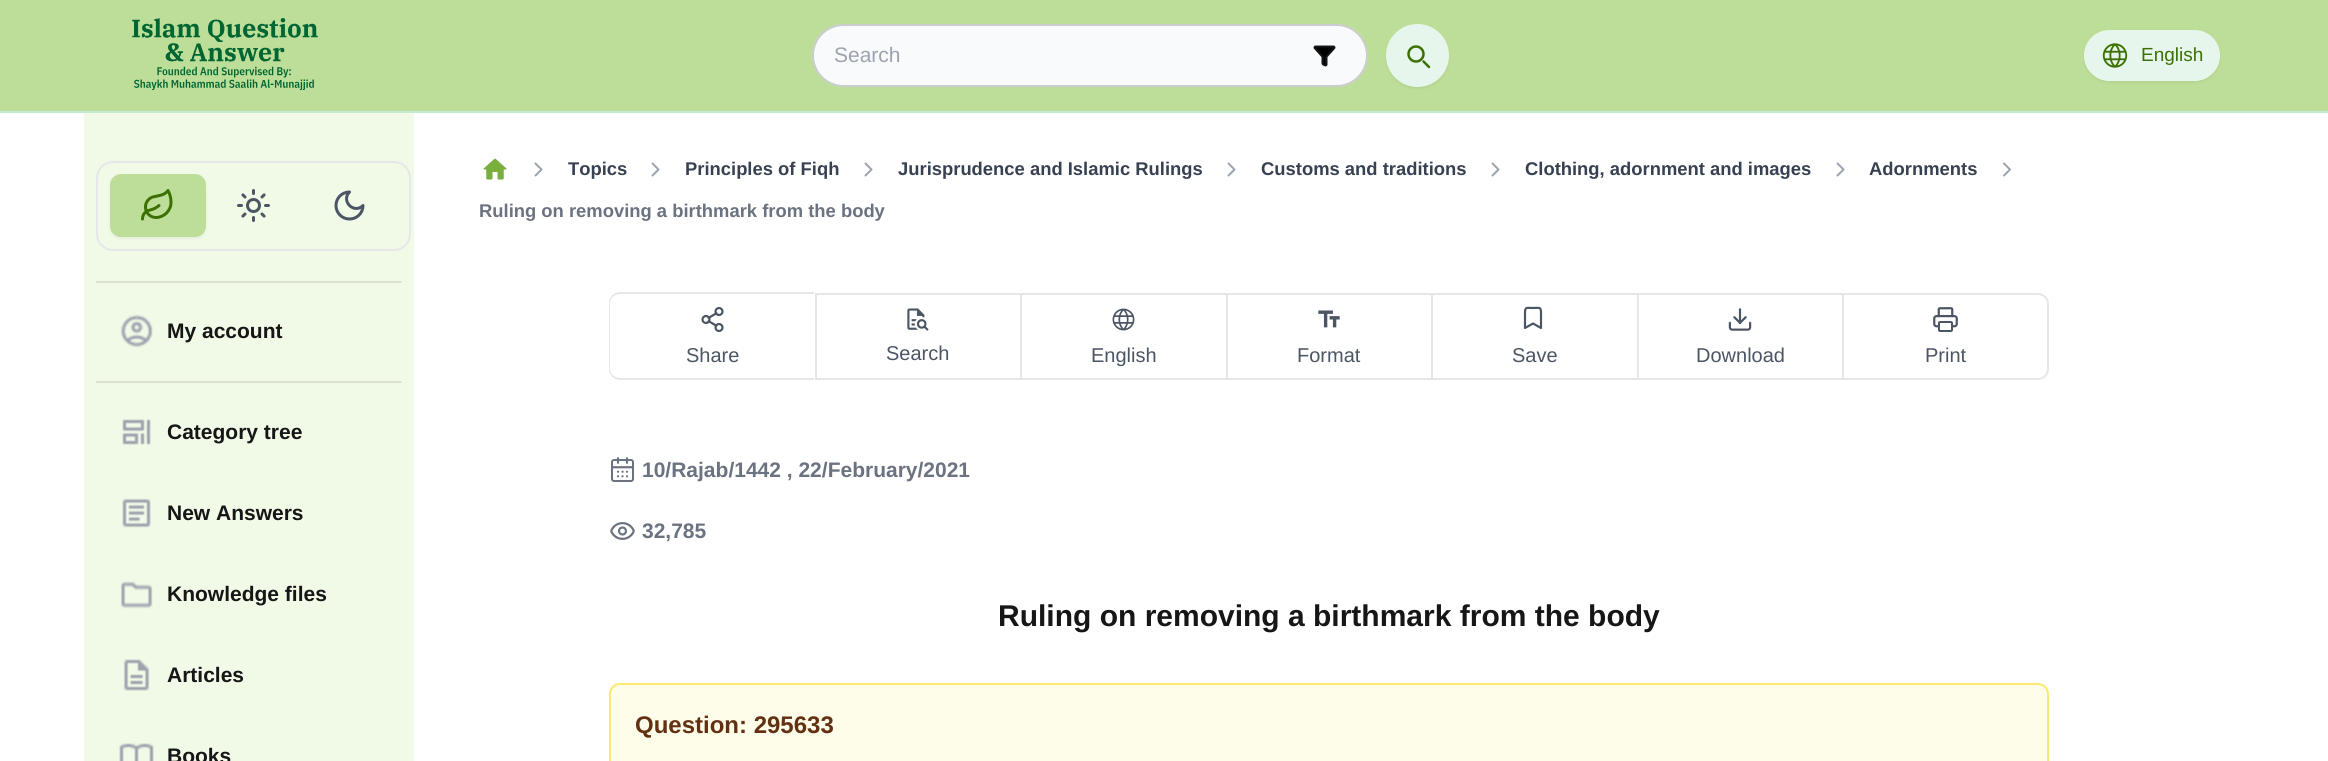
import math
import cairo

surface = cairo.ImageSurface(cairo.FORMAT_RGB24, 2328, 761)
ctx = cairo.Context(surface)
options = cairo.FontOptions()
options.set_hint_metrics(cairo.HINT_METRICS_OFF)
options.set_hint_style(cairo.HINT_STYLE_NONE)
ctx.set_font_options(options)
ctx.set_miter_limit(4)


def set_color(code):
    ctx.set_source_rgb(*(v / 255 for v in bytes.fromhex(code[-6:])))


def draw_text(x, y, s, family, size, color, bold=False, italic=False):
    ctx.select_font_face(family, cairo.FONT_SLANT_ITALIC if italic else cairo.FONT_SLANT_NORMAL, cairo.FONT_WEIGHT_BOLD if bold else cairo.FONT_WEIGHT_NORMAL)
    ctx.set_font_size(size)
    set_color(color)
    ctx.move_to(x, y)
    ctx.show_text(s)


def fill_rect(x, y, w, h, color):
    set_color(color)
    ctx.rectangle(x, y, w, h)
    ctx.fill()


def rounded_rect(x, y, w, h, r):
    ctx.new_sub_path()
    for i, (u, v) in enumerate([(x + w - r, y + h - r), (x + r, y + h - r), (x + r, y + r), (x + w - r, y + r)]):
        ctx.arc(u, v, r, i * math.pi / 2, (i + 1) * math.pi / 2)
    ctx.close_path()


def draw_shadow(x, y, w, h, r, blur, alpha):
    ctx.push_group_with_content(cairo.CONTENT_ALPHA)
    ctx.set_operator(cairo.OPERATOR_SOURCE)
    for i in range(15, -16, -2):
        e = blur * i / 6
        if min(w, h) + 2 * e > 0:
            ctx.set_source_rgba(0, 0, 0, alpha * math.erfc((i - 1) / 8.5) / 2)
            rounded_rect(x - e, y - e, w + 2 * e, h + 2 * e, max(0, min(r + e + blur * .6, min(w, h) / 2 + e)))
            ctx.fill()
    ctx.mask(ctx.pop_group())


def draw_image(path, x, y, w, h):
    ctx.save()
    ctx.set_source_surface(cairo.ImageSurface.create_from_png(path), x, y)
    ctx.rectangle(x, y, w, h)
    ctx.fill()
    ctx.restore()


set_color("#ffffff")
ctx.paint()
fill_rect(0, 0, 2328, 111, "#bdde98")
fill_rect(0, 111, 2328, 2, "#c4ead1")
draw_image("assets/img1.png", 132, 18, 186, 72)
set_color("#f9fafb")
rounded_rect(812, 24, 556, 63, 31.5)
ctx.fill()
rounded_rect(813, 25, 554, 61, 30.5)
ctx.set_source_rgba(0.086, 0.086, 0.086, 0.2)
ctx.stroke()
draw_text(834, 62, "Search", "Liberation Sans", 21, "#9ca3af")
draw_image("assets/img2.png", 1313, 45, 23, 22)
set_color("#000000")
draw_shadow(1386, 26, 63, 63, 31.5, 1.5, 0.05)
set_color("#e7f6ec")
ctx.arc(1417.5, 55.5, 30.5, 0, 2 * math.pi)
ctx.fill_preserve()
ctx.stroke()
ctx.new_path()
ctx.move_to(1429, 67)
ctx.line_to(1423.5, 61.5)
set_color("#3c7101")
ctx.set_line_width(2.5)
ctx.set_line_cap(cairo.LINE_CAP_ROUND)
ctx.set_line_join(cairo.LINE_JOIN_ROUND)
ctx.stroke()
ctx.arc(1416, 54, 7.5, 0, 2 * math.pi)
ctx.set_line_cap(cairo.LINE_CAP_BUTT)
ctx.set_line_join(cairo.LINE_JOIN_MITER)
ctx.stroke()
set_color("#000000")
draw_shadow(2084, 32, 136, 51, 25.5, 1.5, 0.05)
set_color("#e7f6ec")
rounded_rect(2085, 31, 134, 49, 24.5)
ctx.fill_preserve()
ctx.set_line_width(2)
ctx.stroke()
draw_image("assets/img3.png", 2102, 43, 26, 25)
draw_text(2141, 61, "English", "Liberation Sans", 19, "#3c7101")
fill_rect(84, 113, 330, 648, "#f1f9e7")
rounded_rect(97, 162, 313, 88, 16)
set_color("#e5e7eb")
ctx.stroke()
set_color("#000000")
draw_shadow(110, 176, 96, 63, 11, 1.5, 0.05)
set_color("#bdde98")
rounded_rect(110, 174, 96, 63, 11)
ctx.fill()
draw_image("assets/img4.png", 141, 189, 32, 32)
draw_image("assets/img5.png", 237, 189, 33, 33)
ctx.new_path()
ctx.move_to(349.5, 192)
ctx.curve_to(340.5, 201, 354, 214.5, 363, 205.5)
ctx.curve_to(363, 213, 357, 219, 349.5, 219)
ctx.curve_to(342, 219, 336, 213, 336, 205.5)
ctx.curve_to(336, 198, 342, 192, 349.5, 192)
ctx.close_path()
set_color("#4b5563")
ctx.set_line_width(3)
ctx.set_line_cap(cairo.LINE_CAP_ROUND)
ctx.set_line_join(cairo.LINE_JOIN_ROUND)
ctx.stroke()
fill_rect(96, 281, 306, 2, "#dbe2d2")
draw_image("assets/img6.png", 120, 314, 33, 34)
draw_text(167, 338, "My account", "Liberation Sans", 21, "#161616", bold=True)
fill_rect(96, 381, 306, 2, "#dbe2d2")
draw_image("assets/img7.png", 122, 419, 29, 26)
draw_text(167, 439, "Category tree", "Liberation Sans", 21, "#161616", bold=True)
draw_image("assets/img8.png", 122, 498, 29, 30)
draw_text(167, 520, "New Answers", "Liberation Sans", 21, "#161616", bold=True)
draw_image("assets/img9.png", 120, 581, 33, 28)
draw_text(167, 601, "Knowledge files", "Liberation Sans", 21, "#161616", bold=True)
draw_image("assets/img10.png", 123, 659, 27, 32)
draw_text(167, 682, "Articles", "Liberation Sans", 21, "#161616", bold=True)
draw_image("assets/img11.png", 119, 743, 35, 18)
draw_text(167, 763, "Books", "Liberation Sans", 21, "#161616", bold=True)
draw_image("assets/img12.png", 483, 158, 24, 22)
ctx.new_path()
ctx.move_to(535.5, 175.5)
ctx.line_to(541.5, 169.5)
ctx.line_to(535.5, 163.5)
set_color("#9ca3af")
ctx.set_line_width(2)
ctx.stroke()
draw_text(568, 175, "Topics", "Liberation Sans", 18.4, "#374151", bold=True)
ctx.new_path()
ctx.move_to(652.5, 175.5)
ctx.line_to(658.5, 169.5)
ctx.line_to(652.5, 163.5)
set_color("#9ca3af")
ctx.stroke()
draw_text(685, 175, "Principles of Fiqh", "Liberation Sans", 18.4, "#374151", bold=True)
ctx.new_path()
ctx.move_to(865.5, 175.5)
ctx.line_to(871.5, 169.5)
ctx.line_to(865.5, 163.5)
set_color("#9ca3af")
ctx.stroke()
draw_text(898, 175, "Jurisprudence and Islamic Rulings", "Liberation Sans", 18.4, "#374151", bold=True)
ctx.new_path()
ctx.move_to(1228.5, 175.5)
ctx.line_to(1234.5, 169.5)
ctx.line_to(1228.5, 163.5)
set_color("#9ca3af")
ctx.stroke()
draw_text(1261, 175, "Customs and traditions", "Liberation Sans", 18.4, "#374151", bold=True)
ctx.new_path()
ctx.move_to(1492.5, 175.5)
ctx.line_to(1498.5, 169.5)
ctx.line_to(1492.5, 163.5)
set_color("#9ca3af")
ctx.stroke()
draw_text(1525, 175, "Clothing, adornment and images", "Liberation Sans", 18.4, "#374151", bold=True)
ctx.new_path()
ctx.move_to(1837.5, 175.5)
ctx.line_to(1843.5, 169.5)
ctx.line_to(1837.5, 163.5)
set_color("#9ca3af")
ctx.stroke()
draw_text(1869, 175, "Adornments", "Liberation Sans", 18.4, "#374151", bold=True)
ctx.new_path()
ctx.move_to(2004, 175.5)
ctx.line_to(2010, 169.5)
ctx.line_to(2004, 163.5)
set_color("#9ca3af")
ctx.stroke()
draw_text(479, 217, "Ruling on removing a birthmark from the body", "Liberation Sans", 18.4, "#6b7280", bold=True)
set_color("#e5e7eb")
ctx.set_fill_rule(cairo.FILL_RULE_EVEN_ODD)
ctx.new_path()
ctx.move_to(620, 292)
ctx.line_to(814, 292)
ctx.line_to(814, 380)
ctx.line_to(620, 380)
ctx.curve_to(614, 380, 609, 375, 609, 369)
ctx.line_to(609, 303)
ctx.curve_to(609, 297, 614, 292, 620, 292)
ctx.close_path()
ctx.move_to(620, 294)
ctx.line_to(814, 294)
ctx.line_to(814, 378)
ctx.line_to(620, 378)
ctx.curve_to(615, 378, 610, 374, 610, 369)
ctx.line_to(610, 303)
ctx.curve_to(610, 298, 615, 294, 620, 294)
ctx.close_path()
ctx.fill()
draw_image("assets/img13.png", 701, 306, 23, 27)
draw_text(686, 362, "Share", "Liberation Sans", 20, "#4b5563")
fill_rect(815, 293, 1027, 2, "#e5e7eb")
fill_rect(815, 378, 1027, 2, "#e5e7eb")
fill_rect(815, 293, 2, 87, "#e5e7eb")
draw_image("assets/img14.png", 907, 308, 22, 23)
draw_text(886, 360, "Search", "Liberation Sans", 20, "#4b5563")
fill_rect(1020, 293, 2, 87, "#e5e7eb")
draw_image("assets/img15.png", 1112, 308, 23, 23)
draw_text(1091, 362, "English", "Liberation Sans", 20, "#4b5563")
fill_rect(1226, 293, 2, 87, "#e5e7eb")
draw_image("assets/img16.png", 1318, 310, 22, 18)
draw_text(1297, 362, "Format", "Liberation Sans", 20, "#4b5563")
fill_rect(1431, 293, 2, 87, "#e5e7eb")
ctx.new_path()
ctx.move_to(1541, 328)
ctx.line_to(1533, 323.5)
ctx.line_to(1525, 328)
ctx.line_to(1525, 313)
ctx.curve_to(1525, 306.5, 1526.5, 308, 1533, 308)
ctx.curve_to(1539.5, 308, 1541, 306.5, 1541, 313)
ctx.close_path()
set_color("#4b5563")
ctx.set_line_width(2.2)
ctx.stroke()
draw_text(1512, 362, "Save", "Liberation Sans", 20, "#4b5563")
fill_rect(1637, 293, 2, 87, "#e5e7eb")
draw_image("assets/img17.png", 1728, 308, 24, 23)
draw_text(1696, 362, "Download", "Liberation Sans", 20, "#4b5563")
ctx.new_path()
ctx.move_to(1843, 294)
ctx.line_to(2038, 294)
ctx.curve_to(2043.5, 294, 2048, 298.5, 2048, 304)
ctx.line_to(2048, 369)
ctx.curve_to(2048, 374.5, 2043.5, 379, 2038, 379)
ctx.line_to(1843, 379)
ctx.close_path()
set_color("#e5e7eb")
ctx.set_line_width(2)
ctx.set_line_cap(cairo.LINE_CAP_BUTT)
ctx.set_line_join(cairo.LINE_JOIN_MITER)
ctx.stroke()
draw_image("assets/img18.png", 1933, 307, 25, 25)
draw_text(1925, 362, "Print", "Liberation Sans", 20, "#4b5563")
draw_image("assets/img19.png", 611, 457, 23, 25)
draw_text(642, 477, "10/Rajab/1442 , 22/February/2021", "Liberation Sans", 21, "#6b7280", bold=True)
draw_image("assets/img20.png", 610, 522, 25, 18)
draw_text(642, 538, "32,785", "Liberation Sans", 21, "#6b7280", bold=True)
draw_text(998, 626, "Ruling on removing a birthmark from the body", "Liberation Sans", 30, "#161616", bold=True)
set_color("#fdfdea")
rounded_rect(610, 684, 1438, 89, 10)
ctx.fill_preserve()
set_color("#fce96a")
ctx.stroke()
draw_text(635, 733, "Question: 295633", "Liberation Sans", 24, "#633112", bold=True)
surface.write_to_png("output.png")
